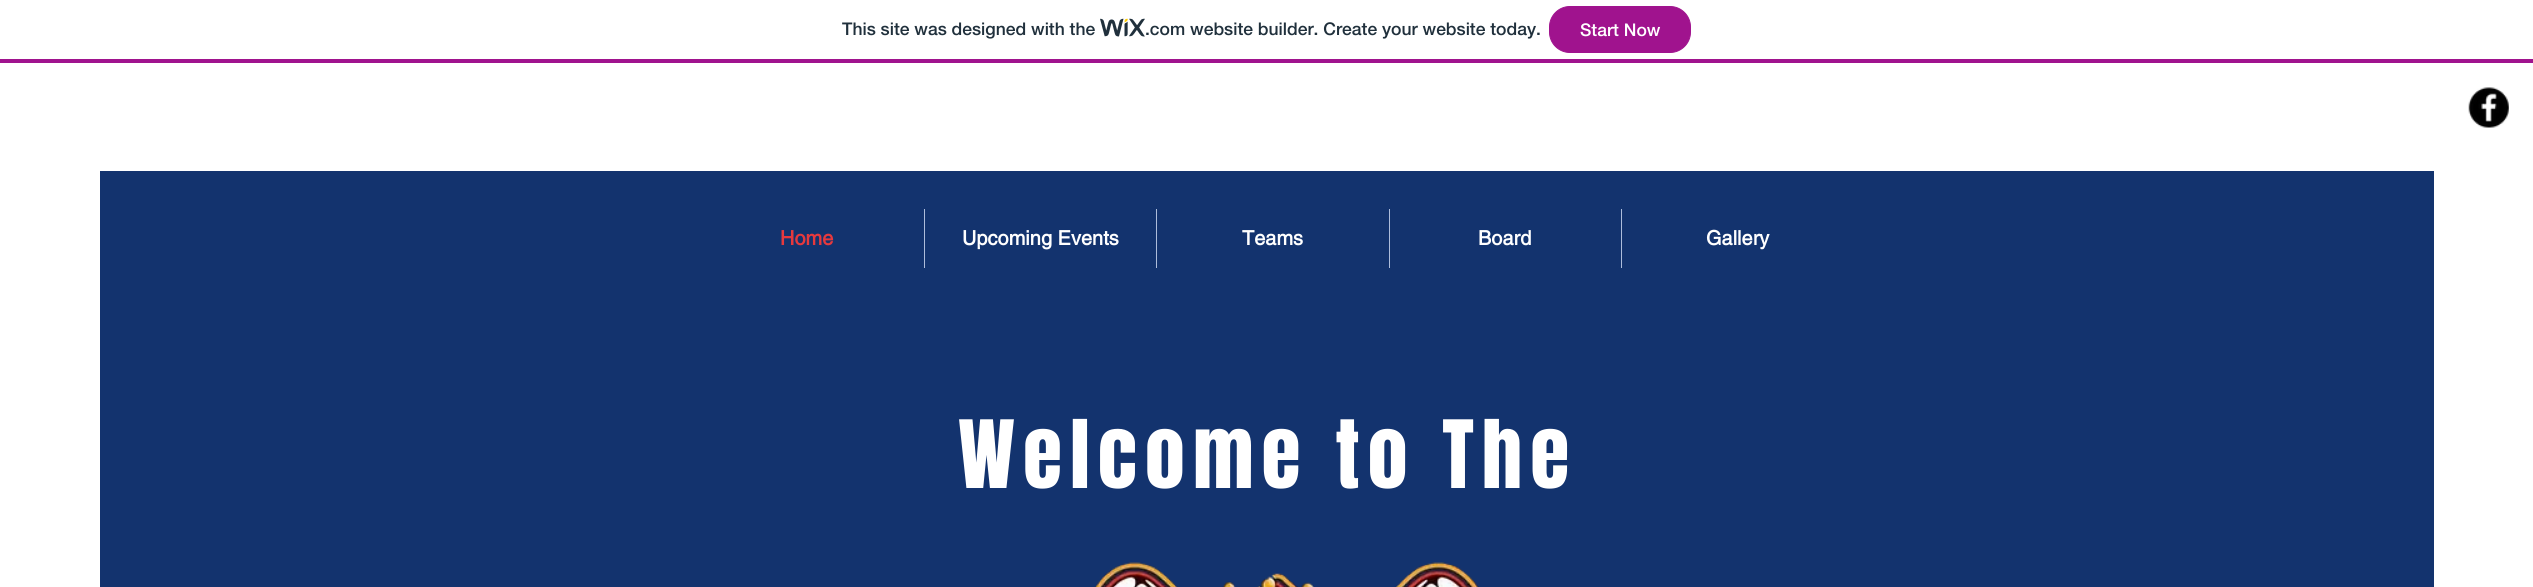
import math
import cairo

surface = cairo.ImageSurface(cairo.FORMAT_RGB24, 2533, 587)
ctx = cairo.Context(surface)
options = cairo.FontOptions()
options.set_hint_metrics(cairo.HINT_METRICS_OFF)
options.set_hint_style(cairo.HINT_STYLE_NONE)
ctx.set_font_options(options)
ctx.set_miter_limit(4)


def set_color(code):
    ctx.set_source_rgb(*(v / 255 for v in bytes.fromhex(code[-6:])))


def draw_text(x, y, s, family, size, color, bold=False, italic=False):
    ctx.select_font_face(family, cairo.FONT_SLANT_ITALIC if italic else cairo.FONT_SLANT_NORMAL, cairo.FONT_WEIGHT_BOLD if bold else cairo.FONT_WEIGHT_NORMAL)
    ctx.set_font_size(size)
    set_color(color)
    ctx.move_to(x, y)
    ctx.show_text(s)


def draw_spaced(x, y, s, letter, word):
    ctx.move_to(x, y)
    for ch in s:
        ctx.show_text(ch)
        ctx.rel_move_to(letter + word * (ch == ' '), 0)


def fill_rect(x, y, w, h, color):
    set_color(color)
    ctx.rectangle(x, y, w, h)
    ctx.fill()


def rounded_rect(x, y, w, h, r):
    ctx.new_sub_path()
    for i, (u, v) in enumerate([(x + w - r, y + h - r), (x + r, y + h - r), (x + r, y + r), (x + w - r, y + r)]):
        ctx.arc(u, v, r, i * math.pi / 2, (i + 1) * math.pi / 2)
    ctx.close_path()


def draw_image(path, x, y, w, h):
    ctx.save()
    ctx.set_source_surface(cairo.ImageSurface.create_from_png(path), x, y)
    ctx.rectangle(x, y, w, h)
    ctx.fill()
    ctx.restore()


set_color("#ffffff")
ctx.paint()
fill_rect(0, 59, 2533, 4, "#a0138e")
draw_text(842, 35, "This site was designed with the", "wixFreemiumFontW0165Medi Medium", 17.5, "#20303c")
draw_image("assets/img1.png", 1100, 18, 45, 19)
draw_text(1145, 35, ".com website builder. Create your website today.", "wixFreemiumFontW0165Medi Medium", 17.5, "#20303c")
set_color("#a0138e")
rounded_rect(1549.5, 6.5, 141, 46, 20.5)
ctx.fill_preserve()
ctx.set_line_width(1)
ctx.stroke()
draw_text(1580, 36, "Start Now", "wixFreemiumFontW0165Medi Medium", 17.5, "#ffffff")
draw_image("assets/img2.png", 2468, 87, 41, 41)
fill_rect(100, 171, 2334, 134, "#13336e")
draw_text(780, 245, "Home", "helvetica", 20, "#e7393d", bold=True)
fill_rect(924, 209, 1, 59, "#aebddb")
draw_text(962, 245, "Upcoming Events", "helvetica", 20, "#ffffff", bold=True)
fill_rect(1156, 209, 1, 59, "#aebddb")
draw_text(1242, 245, "Teams", "helvetica", 20, "#ffffff", bold=True)
fill_rect(1389, 209, 1, 59, "#aebddb")
draw_text(1478, 245, "Board", "helvetica", 20, "#ffffff", bold=True)
fill_rect(1621, 209, 1, 59, "#aebddb")
draw_text(1706, 245, "Gallery", "helvetica", 20, "#ffffff", bold=True)
gradient = cairo.LinearGradient(1267, 305, 1267, 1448)
gradient.add_color_stop_rgba(0.35, 0.075, 0.2, 0.431, 1)
gradient.add_color_stop_rgba(1, 1, 1, 1, 1)
ctx.set_source(gradient)
ctx.rectangle(100, 305, 2334, 282)
ctx.fill()
ctx.select_font_face("Anton")
ctx.set_font_size(80)
set_color("#ffffff")
draw_spaced(958, 488, "Welcome to The", 8, 0)
draw_image("assets/img3.png", 1095, 562, 384, 25)
surface.write_to_png("output.png")
